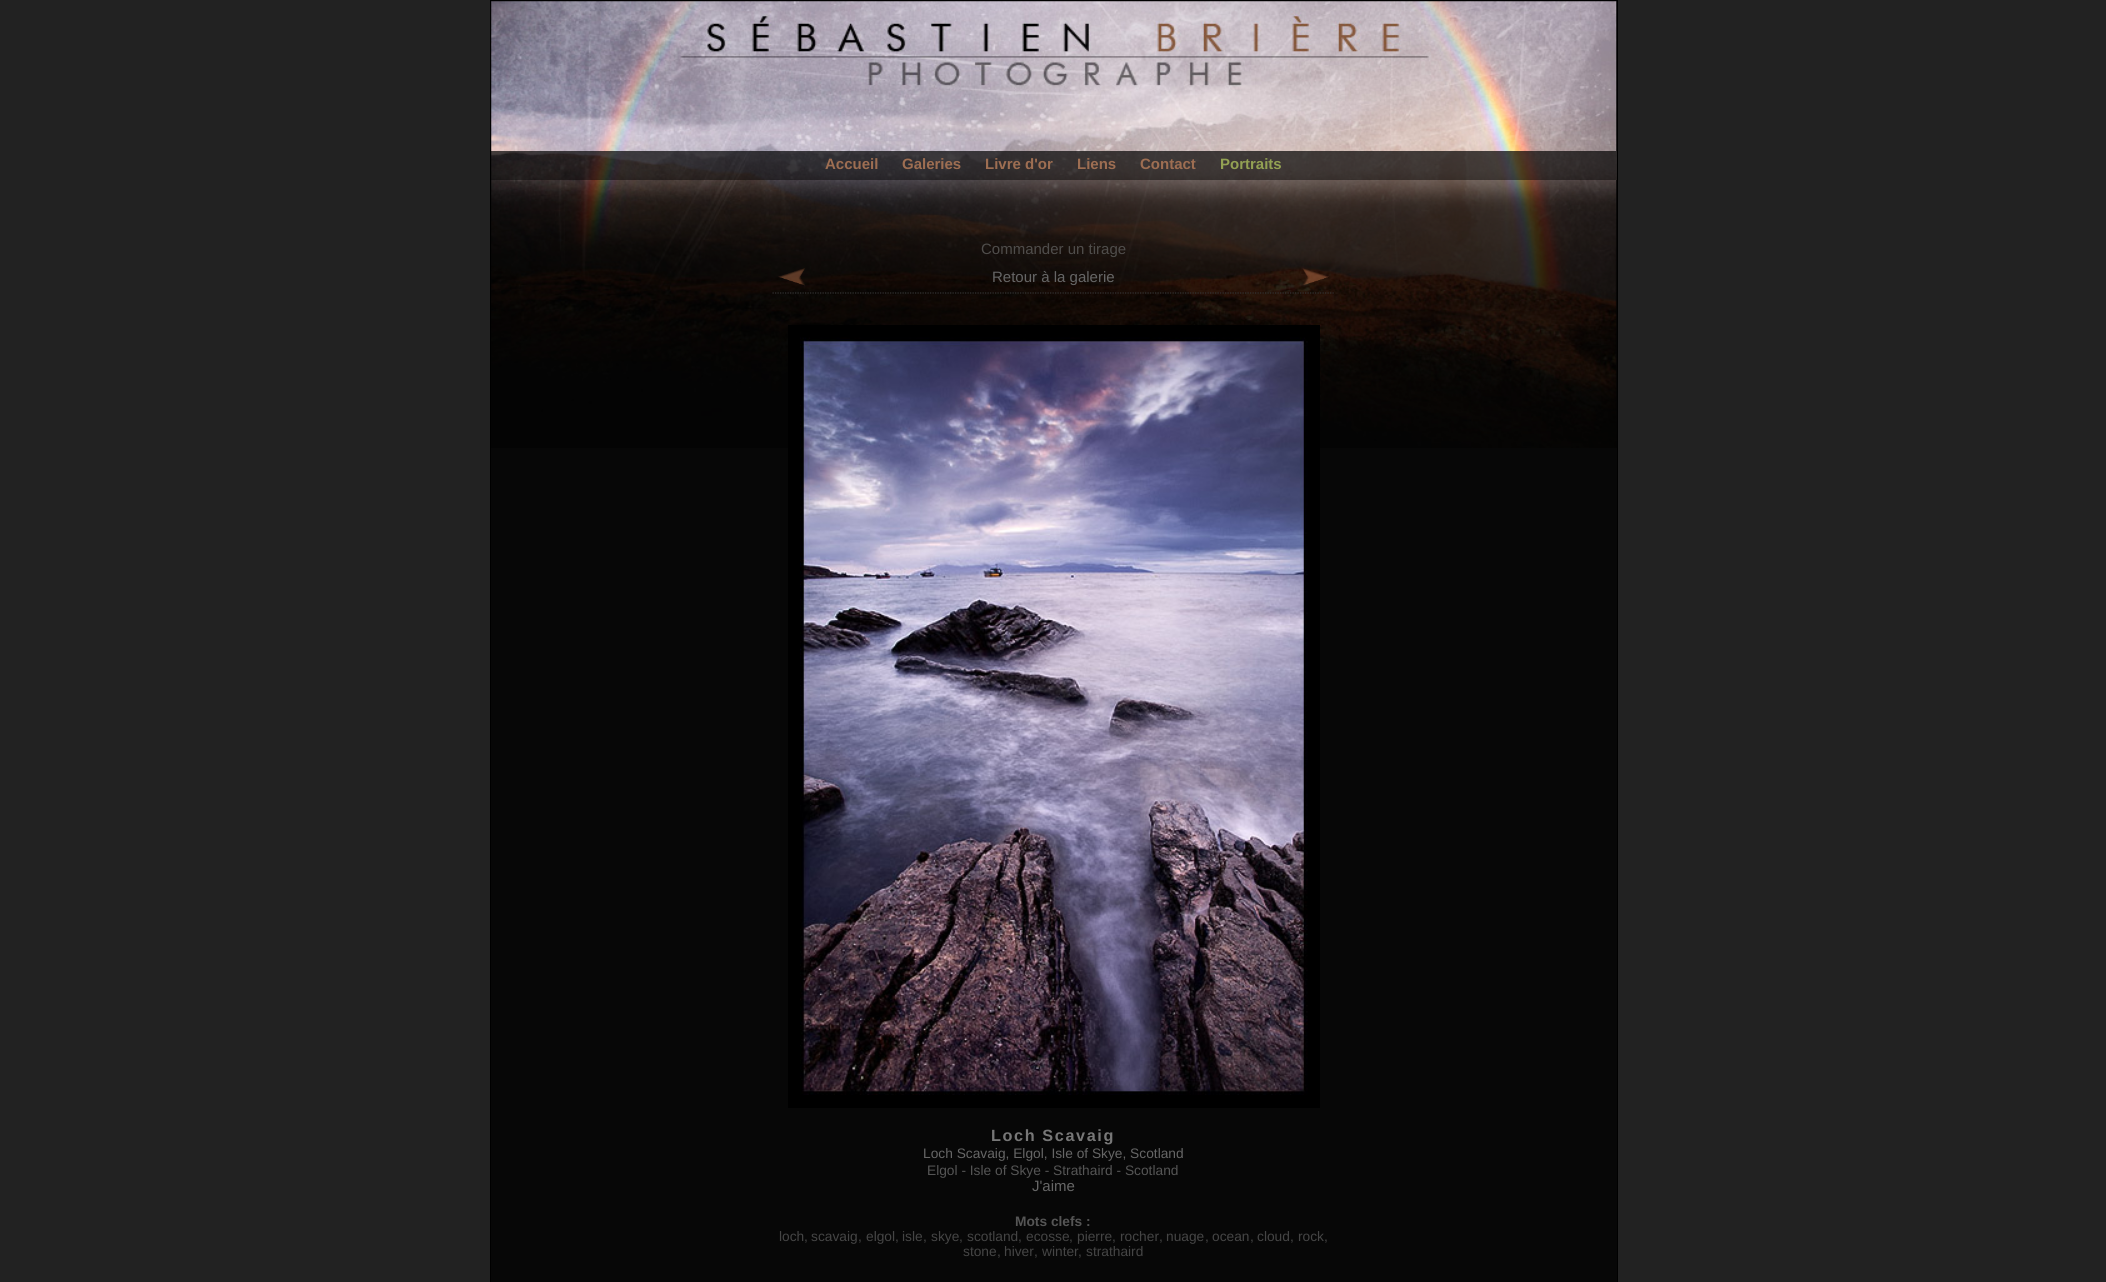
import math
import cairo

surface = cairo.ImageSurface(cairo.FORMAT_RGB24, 2106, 1282)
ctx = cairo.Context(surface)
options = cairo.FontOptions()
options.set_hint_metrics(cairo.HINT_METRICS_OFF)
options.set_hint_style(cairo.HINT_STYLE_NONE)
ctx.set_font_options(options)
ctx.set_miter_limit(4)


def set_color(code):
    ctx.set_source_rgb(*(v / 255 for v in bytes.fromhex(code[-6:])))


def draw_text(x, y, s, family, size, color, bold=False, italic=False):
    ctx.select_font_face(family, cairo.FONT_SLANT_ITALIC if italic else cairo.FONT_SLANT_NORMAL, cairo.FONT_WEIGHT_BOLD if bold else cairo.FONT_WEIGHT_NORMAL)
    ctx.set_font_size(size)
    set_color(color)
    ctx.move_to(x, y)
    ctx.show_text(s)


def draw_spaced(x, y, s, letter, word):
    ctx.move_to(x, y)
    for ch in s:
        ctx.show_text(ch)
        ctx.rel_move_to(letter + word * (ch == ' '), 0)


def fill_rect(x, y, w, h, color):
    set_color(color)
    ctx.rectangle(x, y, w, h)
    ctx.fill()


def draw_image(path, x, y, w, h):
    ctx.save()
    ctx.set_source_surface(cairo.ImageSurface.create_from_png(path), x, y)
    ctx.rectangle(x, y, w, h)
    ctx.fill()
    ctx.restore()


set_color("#222222")
ctx.paint()
fill_rect(491, 1, 1126, 1281, "#070707")
draw_image("assets/img1.png", 491, 1, 1126, 447)
ctx.rectangle(490.5, 0.5, 1127, 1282)
set_color("#000000")
ctx.set_line_width(1)
ctx.stroke()
ctx.set_source_rgba(0, 0, 0, 0.7)
ctx.rectangle(491, 151, 1125, 29)
ctx.fill()
draw_text(825, 169, "Accueil", "Liberation Sans", 15, "#9e6e52", bold=True)
draw_text(902, 169, "Galeries", "Liberation Sans", 15, "#9e6e52", bold=True)
draw_text(985, 169, "Livre d'or", "Liberation Sans", 15, "#9e6e52", bold=True)
draw_text(1077, 169, "Liens", "Liberation Sans", 15, "#9e6e52", bold=True)
draw_text(1140, 169, "Contact", "Liberation Sans", 15, "#9e6e52", bold=True)
draw_text(1220, 169, "Portraits", "Liberation Sans", 15, "#93a153", bold=True)
ctx.set_source_rgba(0, 0, 0, 0.44)
ctx.rectangle(491, 180, 1126, 268)
ctx.fill()
draw_text(981, 254, "Commander un tirage", "Liberation Sans", 15, "#4f4d4b")
ctx.new_path()
ctx.move_to(772.5, 293)
ctx.line_to(1335, 293)
set_color("#333333")
ctx.set_line_width(1.2)
ctx.set_dash([1.25, 1.25])
ctx.stroke()
draw_image("assets/img2.png", 778, 268, 27, 18)
draw_text(992, 282, "Retour à la galerie", "Liberation Sans", 15, "#666666")
draw_image("assets/img3.png", 1302, 268, 27, 17)
ctx.rectangle(794.5, 331.5, 519, 770)
set_color("#000000")
ctx.set_line_width(13)
ctx.set_dash([])
ctx.stroke()
draw_image("assets/img4.png", 800, 337, 508, 758)
ctx.select_font_face("Liberation Sans", cairo.FONT_SLANT_NORMAL, cairo.FONT_WEIGHT_BOLD)
ctx.set_font_size(16.25)
set_color("#777777")
draw_spaced(991, 1141, "Loch Scavaig", 1.6, 0)
draw_text(923, 1158, "Loch Scavaig, Elgol, Isle of Skye, Scotland", "Liberation Sans", 13.75, "#666666")
draw_text(927, 1175, "Elgol - Isle of Skye - Strathaird - Scotland", "Liberation Sans", 13.75, "#555555")
draw_text(1032, 1191, "J'aime", "Liberation Sans", 15, "#666666")
draw_text(1015, 1226, "Mots clefs :", "Liberation Sans", 13.75, "#555555", bold=True)
draw_text(779, 1241, "loch", "Liberation Sans", 13.75, "#454545")
draw_text(804, 1241, ",", "Liberation Sans", 13.75, "#454545")
draw_text(811, 1241, "scavaig", "Liberation Sans", 13.75, "#454545")
draw_text(858, 1241, ",", "Liberation Sans", 13.75, "#454545")
draw_text(866, 1241, "elgol", "Liberation Sans", 13.75, "#454545")
draw_text(895, 1241, ",", "Liberation Sans", 13.75, "#454545")
draw_text(902, 1241, "isle", "Liberation Sans", 13.75, "#454545")
draw_text(923, 1241, ",", "Liberation Sans", 13.75, "#454545")
draw_text(931, 1241, "skye", "Liberation Sans", 13.75, "#454545")
draw_text(959, 1241, ",", "Liberation Sans", 13.75, "#454545")
draw_text(967, 1241, "scotland", "Liberation Sans", 13.75, "#454545")
draw_text(1018, 1241, ",", "Liberation Sans", 13.75, "#454545")
draw_text(1026, 1241, "ecosse", "Liberation Sans", 13.75, "#454545")
draw_text(1069, 1241, ",", "Liberation Sans", 13.75, "#454545")
draw_text(1077, 1241, "pierre", "Liberation Sans", 13.75, "#454545")
draw_text(1112, 1241, ",", "Liberation Sans", 13.75, "#454545")
draw_text(1120, 1241, "rocher", "Liberation Sans", 13.75, "#454545")
draw_text(1159, 1241, ",", "Liberation Sans", 13.75, "#454545")
draw_text(1166, 1241, "nuage", "Liberation Sans", 13.75, "#454545")
draw_text(1205, 1241, ",", "Liberation Sans", 13.75, "#454545")
draw_text(1212, 1241, "ocean", "Liberation Sans", 13.75, "#454545")
draw_text(1250, 1241, ",", "Liberation Sans", 13.75, "#454545")
draw_text(1257, 1241, "cloud", "Liberation Sans", 13.75, "#454545")
draw_text(1290, 1241, ",", "Liberation Sans", 13.75, "#454545")
draw_text(1298, 1241, "rock", "Liberation Sans", 13.75, "#454545")
draw_text(1324, 1241, ",", "Liberation Sans", 13.75, "#454545")
draw_text(963, 1256, "stone", "Liberation Sans", 13.75, "#454545")
draw_text(997, 1256, ",", "Liberation Sans", 13.75, "#454545")
draw_text(1004, 1256, "hiver", "Liberation Sans", 13.75, "#454545")
draw_text(1034, 1256, ",", "Liberation Sans", 13.75, "#454545")
draw_text(1042, 1256, "winter", "Liberation Sans", 13.75, "#454545")
draw_text(1078, 1256, ",", "Liberation Sans", 13.75, "#454545")
draw_text(1086, 1256, "strathaird", "Liberation Sans", 13.75, "#454545")
surface.write_to_png("output.png")
